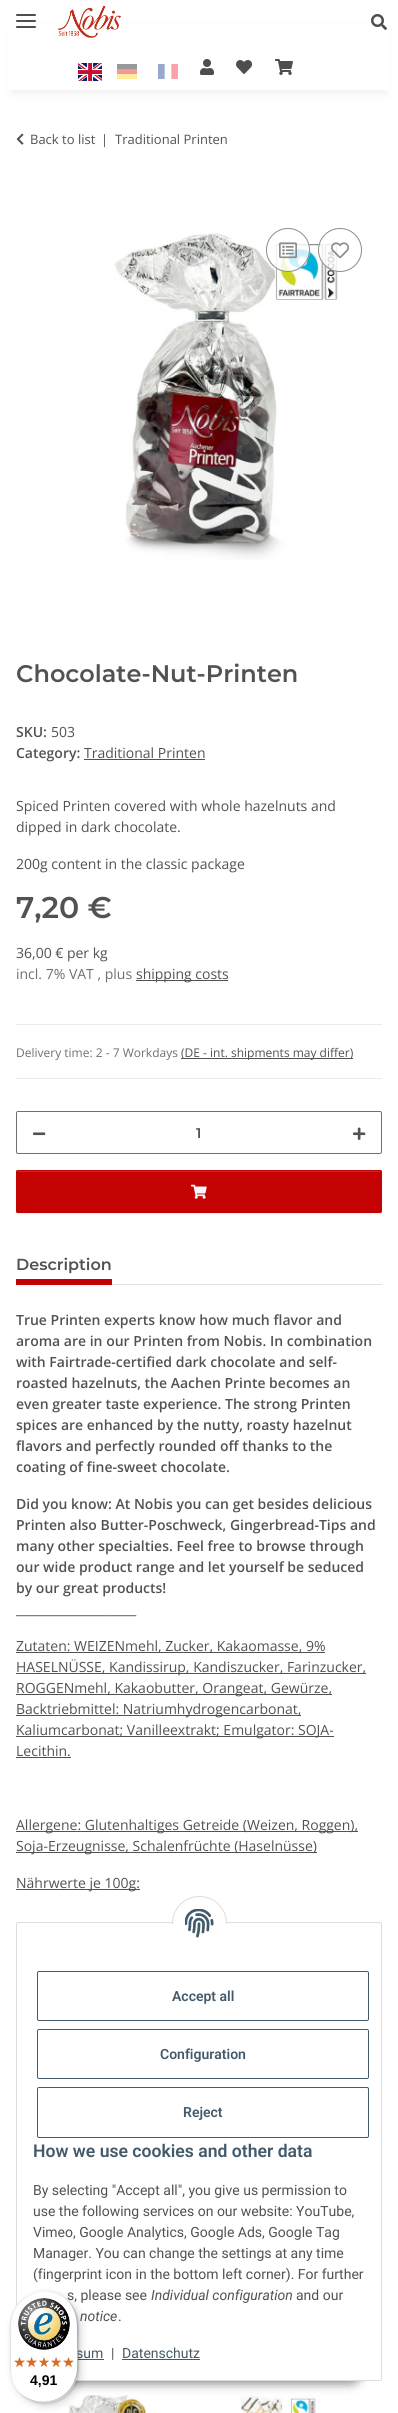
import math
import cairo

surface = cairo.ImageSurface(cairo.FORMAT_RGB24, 398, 2413)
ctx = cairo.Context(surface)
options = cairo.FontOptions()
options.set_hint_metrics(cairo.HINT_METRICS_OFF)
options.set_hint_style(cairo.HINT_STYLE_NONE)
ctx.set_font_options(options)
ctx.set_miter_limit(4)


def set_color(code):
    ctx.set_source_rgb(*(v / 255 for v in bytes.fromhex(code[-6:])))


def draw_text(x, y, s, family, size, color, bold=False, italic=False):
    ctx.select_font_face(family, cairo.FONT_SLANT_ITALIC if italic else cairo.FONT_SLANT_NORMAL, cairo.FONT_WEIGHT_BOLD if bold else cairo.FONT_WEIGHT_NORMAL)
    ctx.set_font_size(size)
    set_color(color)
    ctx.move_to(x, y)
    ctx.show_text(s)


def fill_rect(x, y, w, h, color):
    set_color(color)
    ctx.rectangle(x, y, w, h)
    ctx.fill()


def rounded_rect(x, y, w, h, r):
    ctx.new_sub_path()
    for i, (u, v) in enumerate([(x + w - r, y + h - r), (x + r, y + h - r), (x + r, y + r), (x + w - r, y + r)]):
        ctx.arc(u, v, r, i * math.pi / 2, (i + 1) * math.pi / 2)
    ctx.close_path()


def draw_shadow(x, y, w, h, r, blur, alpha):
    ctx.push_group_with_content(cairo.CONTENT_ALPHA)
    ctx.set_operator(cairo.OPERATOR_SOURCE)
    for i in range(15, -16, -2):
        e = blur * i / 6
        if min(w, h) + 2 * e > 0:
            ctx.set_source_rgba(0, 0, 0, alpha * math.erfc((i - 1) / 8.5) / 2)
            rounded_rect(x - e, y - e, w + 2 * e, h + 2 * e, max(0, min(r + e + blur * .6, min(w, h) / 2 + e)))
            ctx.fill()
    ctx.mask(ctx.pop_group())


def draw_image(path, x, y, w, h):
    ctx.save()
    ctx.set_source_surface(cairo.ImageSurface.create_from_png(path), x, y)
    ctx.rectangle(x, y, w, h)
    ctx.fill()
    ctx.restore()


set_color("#ffffff")
ctx.paint()
set_color("#000000")
draw_shadow(12, 28, 374, 66, 0, 4.5, 0.06)
fill_rect(8, 24, 382, 66, "#ffffff")
set_color("#4f4e4e")
rounded_rect(16, 20, 20, 2, 1)
ctx.fill()
rounded_rect(16, 14, 20, 2, 1)
ctx.fill()
rounded_rect(16, 26, 20, 2, 1)
ctx.fill()
draw_image("assets/img1.png", 58, 6, 63, 32)
draw_image("assets/img2.png", 371, 14, 16, 16)
draw_image("assets/img3.png", 78, 63, 24, 18)
draw_image("assets/img4.png", 117, 64, 20, 15)
draw_image("assets/img5.png", 158, 64, 20, 15)
draw_image("assets/img6.png", 200, 59, 14, 16)
draw_image("assets/img7.png", 236, 60, 16, 14)
draw_image("assets/img8.png", 275, 59, 18, 16)
draw_image("assets/img9.png", 16, 133, 8, 12)
draw_text(30, 144, "Back to list", "Open Sans", 13, "#525252")
draw_text(101, 144, "|", "Open Sans", 13, "#525252")
draw_text(115, 144, "Traditional Printen", "Open Sans", 13, "#525252")
draw_image("assets/img12.png", 114, 233, 224, 327)
ctx.set_source_rgba(1, 1, 1, 0.8)
ctx.arc(288, 250, 22, 0, 2 * math.pi)
ctx.fill()
ctx.arc(288, 250, 21.5, 0, 2 * math.pi)
ctx.set_source_rgba(0.439, 0.439, 0.439, 0.8)
ctx.set_line_width(1)
ctx.stroke()
draw_image("assets/img10.png", 279, 242, 18, 17)
ctx.set_source_rgba(1, 1, 1, 0.8)
ctx.arc(340, 250, 22, 0, 2 * math.pi)
ctx.fill()
ctx.arc(340, 250, 21.5, 0, 2 * math.pi)
ctx.set_source_rgba(0.439, 0.439, 0.439, 0.8)
ctx.stroke()
draw_image("assets/img11.png", 331, 242, 18, 17)
draw_text(16, 682, "Chocolate-Nut-Printen", "Montserrat SemiBold", 24, "#525252")
draw_text(16, 737, "SKU:", "Open Sans SemiBold", 14, "#525252")
draw_text(51, 737, "503", "Open Sans", 14, "#525252")
draw_text(16, 758, "Category:", "Open Sans SemiBold", 14, "#525252")
draw_text(84, 758, "Traditional Printen", "Open Sans", 14, "#525252")
fill_rect(84, 759, 121, 1, "#525252")
draw_text(16, 811, "Spiced Printen covered with whole hazelnuts and", "Open Sans", 14, "#525252")
draw_text(16, 832, "dipped in dark chocolate.", "Open Sans", 14, "#525252")
draw_text(16, 869, "200g content in the classic package", "Open Sans", 14, "#525252")
draw_text(16, 918, "7,20 €", "Montserrat SemiBold", 30, "#525252")
draw_text(16, 958, "36,00 € per kg", "Open Sans", 14, "#525252")
draw_text(16, 979, "incl. 7% VAT , plus", "Open Sans", 14, "#707070")
fill_rect(136, 980, 92, 1, "#525252")
draw_text(136, 979, "shipping costs", "Open Sans", 14, "#525252")
fill_rect(16, 1024, 366, 1, "#ebebeb")
fill_rect(16, 1078, 366, 1, "#ebebeb")
draw_text(16, 1057, "Delivery time: 2 - 7 Workdays", "Open Sans", 12, "#707070")
fill_rect(181, 1058, 172, 1, "#525252")
draw_text(181, 1057, "(DE - int. shipments may differ)", "Open Sans", 12, "#525252")
rounded_rect(16.5, 1111.5, 365, 42, 1.5)
set_color("#707070")
ctx.stroke()
draw_image("assets/img13.png", 33, 1132, 13, 4)
draw_text(196, 1138, "1", "Montserrat SemiBold", 14, "#525252")
draw_image("assets/img14.png", 353, 1127, 13, 13)
set_color("#000000")
draw_shadow(16, 1171, 366, 43, 2, 0.5, 0.07)
set_color("#c40202")
rounded_rect(16, 1170, 366, 43, 2)
ctx.fill()
set_color("#cd2828")
ctx.new_path()
ctx.move_to(18, 1172)
ctx.line_to(380, 1172)
ctx.curve_to(381, 1172, 381, 1172, 381, 1173)
ctx.line_to(381, 1172)
ctx.line_to(380, 1171)
ctx.line_to(17, 1171)
ctx.line_to(17, 1173)
ctx.curve_to(17, 1172, 17, 1172, 18, 1172)
ctx.close_path()
ctx.fill()
rounded_rect(16.5, 1170.5, 365, 42, 1.5)
set_color("#c40202")
ctx.stroke()
draw_image("assets/img15.png", 191, 1184, 16, 15)
fill_rect(112, 1284, 270, 1, "#dee2e6")
draw_text(16, 1270, "Description", "Montserrat SemiBold", 16, "#525252")
fill_rect(16, 1279, 96, 6, "#c40202")
draw_text(16, 1325, "True Printen experts know how much flavor and", "Open Sans SemiBold", 14, "#525252")
draw_text(16, 1346, "aroma are in our Printen from Nobis. In combination", "Open Sans SemiBold", 14, "#525252")
draw_text(16, 1367, "with Fairtrade-certified dark chocolate and self-", "Open Sans SemiBold", 14, "#525252")
draw_text(16, 1388, "roasted hazelnuts, the Aachen Printe becomes an", "Open Sans SemiBold", 14, "#525252")
draw_text(16, 1409, "even greater taste experience. The strong Printen", "Open Sans SemiBold", 14, "#525252")
draw_text(16, 1430, "spices are enhanced by the nutty, roasty hazelnut", "Open Sans SemiBold", 14, "#525252")
draw_text(16, 1451, "flavors and perfectly rounded off thanks to the", "Open Sans SemiBold", 14, "#525252")
draw_text(16, 1472, "coating of fine-sweet chocolate.", "Open Sans SemiBold", 14, "#525252")
draw_text(16, 1509, "Did you know: At Nobis you can get besides delicious", "Open Sans SemiBold", 14, "#525252")
draw_text(16, 1530, "Printen also Butter-Poschweck, Gingerbread-Tips and", "Open Sans SemiBold", 14, "#525252")
draw_text(16, 1551, "many other specialties. Feel free to browse through", "Open Sans SemiBold", 14, "#525252")
draw_text(16, 1572, "our wide product range and let yourself be seduced", "Open Sans SemiBold", 14, "#525252")
draw_text(16, 1593, "by our great products!", "Open Sans SemiBold", 14, "#525252")
draw_text(16, 1614, "____________________", "Open Sans SemiBold", 14, "#525252")
fill_rect(16, 1652, 309, 1, "#525252")
draw_text(16, 1651, "Zutaten: WEIZENmehl, Zucker, Kakaomasse, 9%", "Open Sans", 14, "#525252")
fill_rect(16, 1673, 350, 1, "#525252")
draw_text(16, 1672, "HASELNÜSSE, Kandissirup, Kandiszucker, Farinzucker,", "Open Sans", 14, "#525252")
fill_rect(16, 1694, 316, 1, "#525252")
draw_text(16, 1693, "ROGGENmehl, Kakaobutter, Orangeat, Gewürze,", "Open Sans", 14, "#525252")
fill_rect(16, 1715, 285, 1, "#525252")
draw_text(16, 1714, "Backtriebmittel: Natriumhydrogencarbonat,", "Open Sans", 14, "#525252")
fill_rect(16, 1736, 318, 1, "#525252")
draw_text(16, 1735, "Kaliumcarbonat; Vanilleextrakt; Emulgator: SOJA-", "Open Sans", 14, "#525252")
draw_text(16, 1756, "Lecithin.", "Open Sans", 14, "#525252")
fill_rect(16, 1757, 55, 1, "#525252")
fill_rect(16, 1831, 342, 1, "#525252")
draw_text(16, 1830, "Allergene: Glutenhaltiges Getreide (Weizen, Roggen),", "Open Sans", 14, "#525252")
fill_rect(16, 1852, 301, 1, "#525252")
draw_text(16, 1851, "Soja-Erzeugnisse, Schalenfrüchte (Haselnüsse)", "Open Sans", 14, "#525252")
fill_rect(16, 1889, 124, 1, "#525252")
draw_text(16, 1888, "Nährwerte je 100g:", "Open Sans", 14, "#525252")
draw_image("assets/img16.png", 69, 2395, 77, 18)
draw_image("assets/img17.png", 240, 2396, 76, 17)
set_color("#000000")
draw_shadow(35, 2352, 328, 32, 16, 5, 0.45)
set_color("#ffffff")
rounded_rect(16.5, 1922.5, 365, 458, 1.5)
ctx.fill_preserve()
set_color("#dddddd")
ctx.stroke()
set_color("#ffffff")
ctx.arc(199.5, 1923.5, 27, 0, 2 * math.pi)
ctx.fill_preserve()
set_color("#dddddd")
ctx.stroke()
fill_rect(172, 1924, 55, 27, "#ffffff")
draw_image("assets/img18.png", 185, 1909, 29, 29)
rounded_rect(37.5, 1971.5, 331, 49, 1.5)
set_color("#435a6b")
ctx.stroke()
draw_text(172, 2001, "Accept all", "Roboto SemiBold", 14, "#435a6b")
rounded_rect(37.5, 2029.5, 331, 49, 1.5)
ctx.stroke()
draw_text(160, 2059, "Configuration", "Roboto SemiBold", 14, "#435a6b")
rounded_rect(37.5, 2087.5, 331, 50, 1.5)
ctx.stroke()
draw_text(183, 2117, "Reject", "Roboto SemiBold", 14, "#435a6b")
draw_text(33, 2157, "How we use cookies and other data", "Roboto SemiBold", 17.6, "#435a6b")
draw_text(33, 2195, "By selecting \"Accept all\", you give us permission to", "Roboto", 14, "#525252")
draw_text(33, 2216, "use the following services on our website: YouTube,", "Roboto", 14, "#525252")
draw_text(33, 2237, "Vimeo, Google Analytics, Google Ads, Google Tag", "Roboto", 14, "#525252")
draw_text(33, 2258, "Manager. You can change the settings at any time", "Roboto", 14, "#525252")
draw_text(33, 2279, "(fingerprint icon in the bottom left corner). For further", "Roboto", 14, "#525252")
draw_text(67, 2300, "s, please see", "Roboto", 14, "#525252")
draw_text(151, 2300, "Individual configuration", "Roboto", 14, "#525252", italic=True)
draw_text(296, 2300, "and our", "Roboto", 14, "#525252")
draw_text(80, 2321, "notice", "Roboto", 14, "#525252", italic=True)
draw_text(118, 2321, ".", "Roboto", 14, "#525252")
draw_text(76, 2358, "sum", "Roboto", 14, "#435a6b")
fill_rect(78, 2359, 26, 1, "#435a6b")
draw_text(111, 2358, "|", "Roboto", 14, "#525252")
draw_text(122, 2358, "Datenschutz", "Roboto", 14, "#435a6b")
fill_rect(122, 2359, 78, 1, "#435a6b")
set_color("#000000")
draw_shadow(13, 2294, 68, 112, 34, 4, 0.15)
draw_shadow(11, 2292, 68, 112, 34, 1, 0.15)
set_color("#ffffff")
rounded_rect(10, 2291, 68, 112, 34)
ctx.fill()
set_color("#e5e5e5")
ctx.new_path()
ctx.move_to(45, 2292)
ctx.curve_to(53, 2292, 61, 2295, 67, 2300)
ctx.curve_to(50, 2285, 22, 2291, 13, 2312)
ctx.curve_to(8, 2322, 10, 2336, 10, 2347)
ctx.curve_to(10, 2362, 7, 2379, 19, 2392)
ctx.curve_to(14, 2386, 11, 2378, 11, 2370)
ctx.line_to(11, 2326)
ctx.curve_to(11, 2307, 26, 2292, 45, 2292)
ctx.close_path()
ctx.fill()
ctx.set_source_rgba(0, 0, 0, 0.2)
ctx.new_path()
ctx.move_to(21, 2394)
ctx.curve_to(38, 2409, 66, 2403, 75, 2382)
ctx.curve_to(80, 2372, 78, 2358, 78, 2347)
ctx.curve_to(78, 2332, 81, 2315, 69, 2302)
ctx.curve_to(79, 2315, 77, 2331, 77, 2346)
ctx.curve_to(77, 2357, 79, 2371, 74, 2381)
ctx.curve_to(66, 2402, 39, 2408, 21, 2394)
ctx.close_path()
ctx.fill()
ctx.set_source_rgba(0.196, 0.196, 0.196, 0.2)
ctx.new_path()
ctx.move_to(17, 2390)
ctx.curve_to(24, 2398, 33, 2403, 44, 2403)
ctx.curve_to(63, 2403, 78, 2388, 78, 2369)
ctx.line_to(78, 2325)
ctx.curve_to(78, 2314, 73, 2305, 65, 2298)
ctx.curve_to(72, 2305, 77, 2314, 77, 2324)
ctx.line_to(77, 2368)
ctx.curve_to(77, 2387, 62, 2402, 43, 2402)
ctx.curve_to(33, 2402, 24, 2397, 17, 2390)
ctx.close_path()
ctx.fill()
ctx.set_source_rgba(1, 1, 1, 0.3)
ctx.new_path()
ctx.move_to(10, 2368)
ctx.curve_to(10, 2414, 78, 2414, 78, 2368)
ctx.curve_to(78, 2387, 62, 2402, 44, 2402)
ctx.curve_to(25, 2402, 10, 2387, 10, 2368)
ctx.close_path()
ctx.fill()
draw_image("assets/img19.png", 18, 2298, 52, 52)
draw_image("assets/img20.png", 14, 2357, 11, 10)
draw_image("assets/img21.png", 27, 2357, 10, 10)
draw_image("assets/img22.png", 39, 2357, 10, 10)
draw_image("assets/img23.png", 51, 2357, 11, 10)
draw_image("assets/img23.png", 63, 2357, 11, 10)
draw_image("assets/img24.png", 14, 2357, 11, 10)
draw_image("assets/img25.png", 26, 2357, 11, 10)
draw_image("assets/img26.png", 39, 2357, 10, 10)
draw_image("assets/img27.png", 51, 2357, 10, 10)
draw_image("assets/img28.png", 63, 2357, 10, 10)
draw_text(30, 2385, "4,91", "Liberation Sans", 14, "#000000", bold=True)
surface.write_to_png("output.png")
